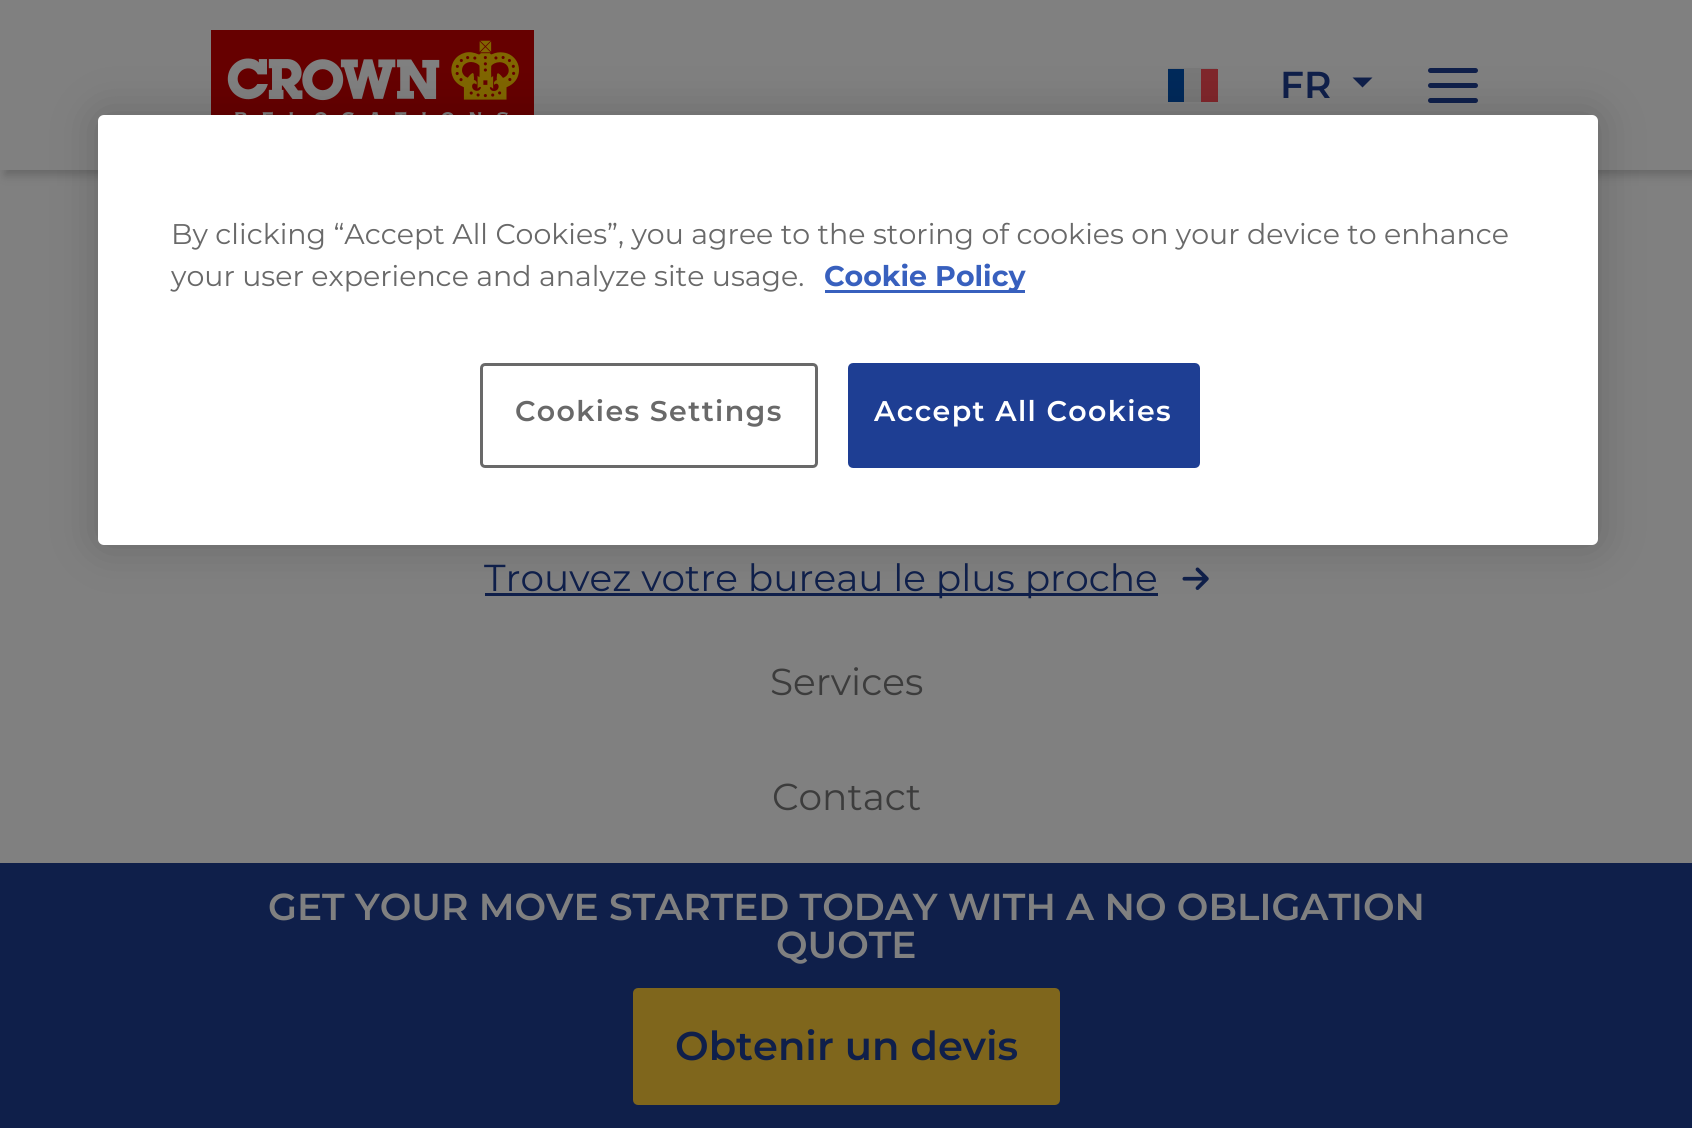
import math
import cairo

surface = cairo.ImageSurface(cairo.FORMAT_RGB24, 1692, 1128)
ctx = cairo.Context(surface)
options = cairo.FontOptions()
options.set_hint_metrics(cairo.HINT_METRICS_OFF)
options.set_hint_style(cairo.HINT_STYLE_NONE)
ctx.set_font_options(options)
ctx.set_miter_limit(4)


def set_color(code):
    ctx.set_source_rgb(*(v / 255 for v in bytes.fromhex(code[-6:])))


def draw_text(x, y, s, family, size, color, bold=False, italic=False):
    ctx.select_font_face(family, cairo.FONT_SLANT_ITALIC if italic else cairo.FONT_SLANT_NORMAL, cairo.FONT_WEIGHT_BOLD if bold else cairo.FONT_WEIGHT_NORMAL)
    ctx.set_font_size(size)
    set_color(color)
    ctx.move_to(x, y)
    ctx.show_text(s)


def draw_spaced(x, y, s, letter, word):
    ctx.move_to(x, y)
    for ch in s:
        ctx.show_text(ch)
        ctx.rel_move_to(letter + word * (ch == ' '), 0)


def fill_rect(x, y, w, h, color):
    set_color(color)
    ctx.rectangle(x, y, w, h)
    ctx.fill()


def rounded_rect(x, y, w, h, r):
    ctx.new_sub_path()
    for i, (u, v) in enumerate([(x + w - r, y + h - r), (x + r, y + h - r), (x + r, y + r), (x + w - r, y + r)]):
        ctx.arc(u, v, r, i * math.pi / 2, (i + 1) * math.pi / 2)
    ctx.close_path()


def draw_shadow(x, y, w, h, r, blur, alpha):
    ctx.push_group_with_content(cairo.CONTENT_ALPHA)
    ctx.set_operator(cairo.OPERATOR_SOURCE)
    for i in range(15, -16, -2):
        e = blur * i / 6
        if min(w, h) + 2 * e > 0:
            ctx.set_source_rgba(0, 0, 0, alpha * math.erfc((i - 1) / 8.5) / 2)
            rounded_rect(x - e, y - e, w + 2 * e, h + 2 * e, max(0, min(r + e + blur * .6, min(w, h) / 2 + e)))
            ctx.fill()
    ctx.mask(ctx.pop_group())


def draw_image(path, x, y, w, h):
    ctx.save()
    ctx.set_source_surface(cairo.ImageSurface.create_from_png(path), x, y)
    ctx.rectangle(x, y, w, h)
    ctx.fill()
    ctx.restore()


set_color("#808080")
ctx.paint()
set_color("#000000")
draw_shadow(5, 5, 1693, 170, 0, 5, 0.2)
fill_rect(0, 0, 1692, 170, "#808080")
draw_image("assets/img1.png", 211, 30, 323, 85)
fill_rect(1168, 68, 49, 34, "#787878")
fill_rect(1201, 69, 17, 33, "#80262b")
fill_rect(1168, 69, 16, 33, "#00295a")
draw_text(1280, 98, "FR", "Montserrat SemiBold", 37.5, "#0f1f4a")
ctx.new_path()
ctx.move_to(1352.5, 77.5)
ctx.line_to(1372.5, 77.5)
ctx.line_to(1362.5, 87.5)
ctx.close_path()
ctx.fill()
rounded_rect(1428, 68, 50, 5, 2.5)
ctx.fill()
rounded_rect(1428, 83, 50, 5, 2.5)
ctx.fill()
rounded_rect(1428, 98, 50, 5, 2.5)
ctx.fill()
fill_rect(485, 593, 673, 3, "#0f1f4a")
draw_image("assets/img2.png", 1182, 567, 27, 23)
set_color("#000000")
draw_shadow(98, 115, 1500, 430, 6, 22.5, 0.2)
set_color("#ffffff")
rounded_rect(98, 115, 1500, 430, 6)
ctx.fill()
draw_text(171, 244, "By clicking “Accept All Cookies”, you agree to the storing of cookies on your device to enhance", "Montserrat", 28.45, "#696969")
draw_text(171, 286, "your user experience and analyze site usage.", "Montserrat", 28.45, "#696969")
fill_rect(825, 290, 200, 3, "#3860be")
draw_text(824, 286, "Cookie Policy", "Montserrat", 28.45, "#3860be", bold=True)
rounded_rect(481.5, 364.5, 335, 102, 3.5)
set_color("#696969")
ctx.set_line_width(3)
ctx.stroke()
ctx.select_font_face("Montserrat SemiBold")
draw_spaced(515, 421, "Cookies Settings", 1.4, 0)
set_color("#1e3e93")
rounded_rect(849.5, 364.5, 349, 102, 3.5)
ctx.fill_preserve()
ctx.stroke()
set_color("#ffffff")
draw_spaced(874, 421, "Accept All Cookies", 1.4, 0)
draw_text(484, 591, "Trouvez votre bureau le plus proche", "Montserrat", 37.5, "#0f1f4a")
draw_text(770, 695, "Services", "Montserrat", 37.5, "#3c3c3c")
draw_text(772, 810, "Contact", "Montserrat", 37.5, "#3c3c3c")
fill_rect(0, 863, 1692, 265, "#0f1f4a")
draw_text(268, 920, "GET YOUR MOVE STARTED TODAY WITH A NO OBLIGATION", "Montserrat SemiBold", 37.5, "#808080")
draw_text(776, 958, "QUOTE", "Montserrat SemiBold", 37.5, "#808080")
set_color("#7f661c")
rounded_rect(635.5, 990.5, 422, 112, 2.5)
ctx.fill_preserve()
ctx.set_line_width(5)
ctx.stroke()
draw_text(675, 1060, "Obtenir un devis", "Montserrat SemiBold", 40, "#0f1f4a")
surface.write_to_png("output.png")
